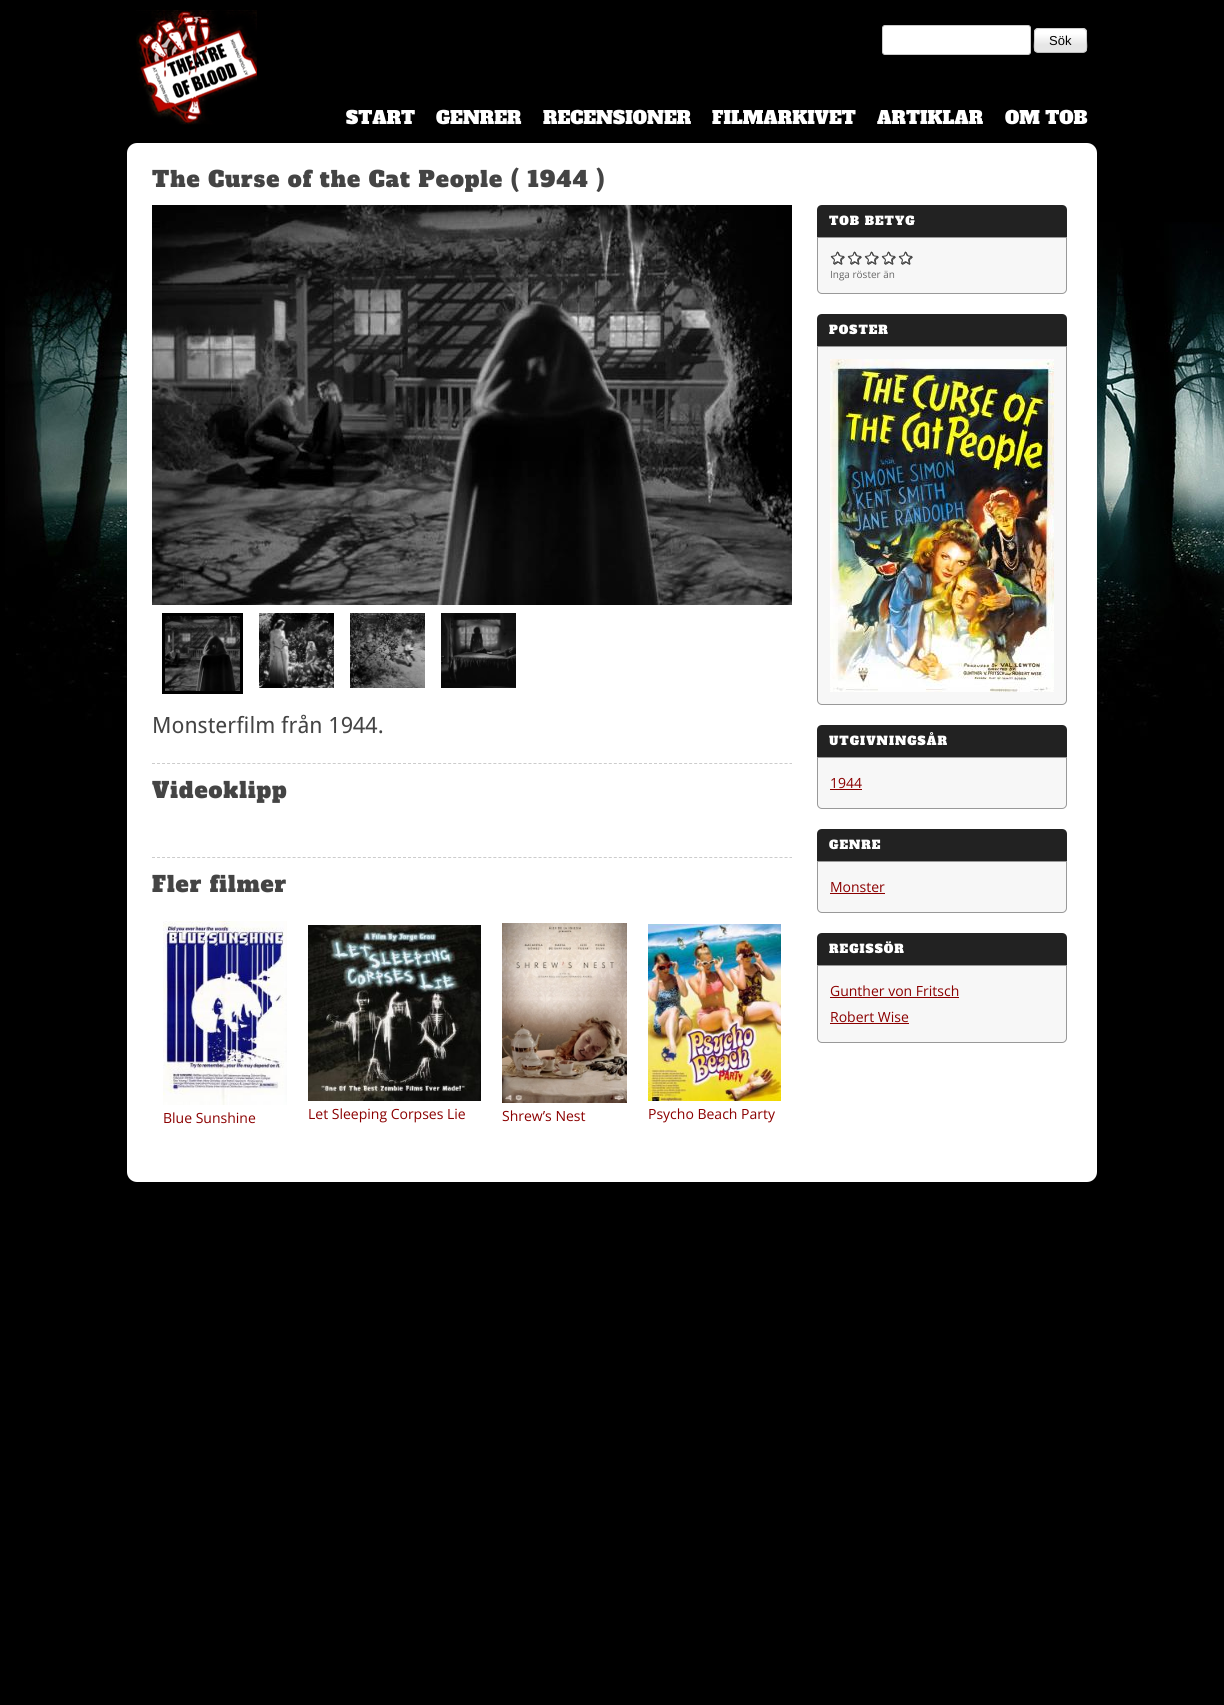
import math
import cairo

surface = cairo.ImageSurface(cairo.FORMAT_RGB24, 1224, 1705)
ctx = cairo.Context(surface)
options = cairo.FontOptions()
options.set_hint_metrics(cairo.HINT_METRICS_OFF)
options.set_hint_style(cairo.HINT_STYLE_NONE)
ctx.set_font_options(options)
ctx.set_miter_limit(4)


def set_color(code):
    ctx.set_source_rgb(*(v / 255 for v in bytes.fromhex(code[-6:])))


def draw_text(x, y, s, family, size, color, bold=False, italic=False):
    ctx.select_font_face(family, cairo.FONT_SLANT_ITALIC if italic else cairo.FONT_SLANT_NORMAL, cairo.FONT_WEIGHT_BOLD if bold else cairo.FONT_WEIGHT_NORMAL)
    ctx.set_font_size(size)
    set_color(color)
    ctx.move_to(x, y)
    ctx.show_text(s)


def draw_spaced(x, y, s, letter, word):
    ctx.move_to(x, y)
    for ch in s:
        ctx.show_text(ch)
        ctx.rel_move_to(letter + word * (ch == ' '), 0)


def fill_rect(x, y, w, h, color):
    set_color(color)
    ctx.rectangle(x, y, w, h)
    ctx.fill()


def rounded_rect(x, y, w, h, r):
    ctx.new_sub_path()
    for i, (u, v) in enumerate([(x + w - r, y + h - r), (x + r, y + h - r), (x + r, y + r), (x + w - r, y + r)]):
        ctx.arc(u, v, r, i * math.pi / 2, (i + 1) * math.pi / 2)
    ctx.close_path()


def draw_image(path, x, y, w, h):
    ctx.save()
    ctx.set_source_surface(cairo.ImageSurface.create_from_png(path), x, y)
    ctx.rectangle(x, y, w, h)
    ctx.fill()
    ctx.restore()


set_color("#000000")
ctx.paint()
draw_image("assets/img1.png", 5, 222, 1219, 514)
draw_image("assets/img2.png", 136, 10, 121, 115)
set_color("#ffffff")
rounded_rect(882.5, 25.5, 148, 29, 2.5)
ctx.fill_preserve()
set_color("#cccccc")
ctx.set_line_width(1)
ctx.stroke()
ctx.save()
rounded_rect(1034, 28, 53, 25, 4)
ctx.clip()
gradient = cairo.LinearGradient(1035, 29, 1035, 6)
gradient.add_color_stop_rgba(0.3, 0.902, 0.902, 0.902, 1)
gradient.add_color_stop_rgba(0.8, 1, 1, 1, 1)
ctx.set_source(gradient)
ctx.rectangle(1034, 28, 53, 1)
ctx.fill()
gradient = cairo.LinearGradient(1035, 52, 1035, 29)
gradient.add_color_stop_rgba(0.3, 0.902, 0.902, 0.902, 1)
gradient.add_color_stop_rgba(0.8, 1, 1, 1, 1)
ctx.set_source(gradient)
ctx.rectangle(1034, 29, 53, 23)
ctx.fill()
ctx.restore()
set_color("#ffffff")
ctx.new_path()
ctx.move_to(1038, 30)
ctx.line_to(1083, 30)
ctx.curve_to(1085, 30, 1086, 31, 1086, 33)
ctx.curve_to(1086, 27, 1080, 29, 1076, 29)
ctx.line_to(1046, 29)
ctx.curve_to(1041, 29, 1035, 27, 1035, 33)
ctx.curve_to(1035, 31, 1036, 30, 1038, 30)
ctx.close_path()
ctx.fill()
ctx.new_path()
ctx.move_to(1085.5, 51.5)
ctx.curve_to(1085, 52, 1084, 52.5, 1083, 52.5)
ctx.line_to(1038, 52.5)
ctx.curve_to(1037, 52.5, 1036, 52, 1035.5, 51.5)
set_color("#bbbbbb")
ctx.stroke()
ctx.new_path()
ctx.move_to(1035.5, 51.5)
ctx.curve_to(1033.5, 49, 1034.5, 43, 1034.5, 40.5)
ctx.curve_to(1034.5, 28, 1033, 28.5, 1045.5, 28.5)
ctx.line_to(1075.5, 28.5)
ctx.curve_to(1088, 28.5, 1086.5, 28, 1086.5, 40.5)
ctx.curve_to(1086.5, 43, 1087.5, 49, 1085.5, 51.5)
set_color("#cccccc")
ctx.stroke()
draw_text(1049, 45, "Sök", "Liberation Sans", 13, "#000000")
draw_text(346, 124, "START", "Alfa Slab One", 18, "#ffffff")
draw_text(436, 124, "GENRER", "Alfa Slab One", 18, "#ffffff")
draw_text(543, 124, "RECENSIONER", "Alfa Slab One", 18, "#ffffff")
draw_text(712, 124, "FILMARKIVET", "Alfa Slab One", 18, "#ffffff")
draw_text(877, 124, "ARTIKLAR", "Alfa Slab One", 18, "#ffffff")
draw_text(1005, 124, "OM TOB", "Alfa Slab One", 18, "#ffffff")
rounded_rect(127, 143, 970, 1039, 10)
ctx.fill()
ctx.set_font_size(22)
set_color("#444444")
draw_spaced(152, 187, "The Curse of the Cat People ( 1944 )", 1, 0)
draw_image("assets/img3.png", 152, 205, 640, 400)
ctx.rectangle(163.5, 614.5, 78, 78)
set_color("#000000")
ctx.set_line_width(3)
ctx.stroke()
draw_image("assets/img4.png", 165, 616, 75, 75)
draw_image("assets/img5.png", 259, 613, 75, 75)
draw_image("assets/img6.png", 350, 613, 75, 75)
draw_image("assets/img7.png", 441, 613, 75, 75)
draw_text(152, 733, "Monsterfilm från 1944.", "Droid Sans", 22.4, "#444444")
ctx.new_path()
ctx.move_to(152, 763.5)
ctx.line_to(792, 763.5)
set_color("#cccccc")
ctx.set_line_width(1)
ctx.set_dash([3, 2.02])
ctx.stroke()
ctx.select_font_face("Alfa Slab One")
ctx.set_font_size(22)
set_color("#444444")
draw_spaced(152, 798, "Videoklipp", 1, 0)
ctx.new_path()
ctx.move_to(152, 857.5)
ctx.line_to(792, 857.5)
set_color("#cccccc")
ctx.stroke()
set_color("#444444")
draw_spaced(152, 892, "Fler filmer", 1, 0)
draw_image("assets/img8.png", 163, 921, 124, 184)
draw_text(163, 1123, "Blue Sunshine", "Open Sans", 14, "#8b0000")
draw_image("assets/img9.png", 308, 925, 173, 176)
draw_text(308, 1119, "Let Sleeping Corpses Lie", "Open Sans", 14, "#8b0000")
draw_image("assets/img10.png", 502, 923, 125, 180)
draw_text(502, 1121, "Shrew’s Nest", "Open Sans", 14, "#8b0000")
draw_image("assets/img11.png", 648, 924, 133, 177)
draw_text(648, 1119, "Psycho Beach Party", "Open Sans", 14, "#8b0000")
set_color("#222222")
ctx.new_path()
ctx.move_to(822, 205)
ctx.line_to(1062, 205)
ctx.curve_to(1065, 205, 1067, 207, 1067, 210)
ctx.line_to(1067, 237)
ctx.line_to(817, 237)
ctx.line_to(817, 210)
ctx.curve_to(817, 207, 819, 205, 822, 205)
ctx.close_path()
ctx.fill()
ctx.select_font_face("Alfa Slab One")
ctx.set_font_size(12)
set_color("#ffffff")
draw_spaced(829, 225, "TOB BETYG", 1, 0)
set_color("#f7f7f7")
ctx.new_path()
ctx.move_to(817.5, 237.5)
ctx.line_to(1066.5, 237.5)
ctx.line_to(1066.5, 289)
ctx.curve_to(1066.5, 291.5, 1064.5, 293.5, 1062, 293.5)
ctx.line_to(822, 293.5)
ctx.curve_to(819.5, 293.5, 817.5, 291.5, 817.5, 289)
ctx.close_path()
ctx.fill_preserve()
set_color("#999999")
ctx.set_dash([])
ctx.stroke()
draw_image("assets/img12.png", 830, 251, 15, 14)
draw_image("assets/img12.png", 847, 251, 15, 14)
draw_image("assets/img12.png", 864, 251, 15, 14)
draw_image("assets/img12.png", 881, 251, 15, 14)
draw_image("assets/img12.png", 898, 251, 15, 14)
draw_text(830, 278, "Inga röster än", "Open Sans", 10, "#666666")
set_color("#222222")
ctx.new_path()
ctx.move_to(822, 314)
ctx.line_to(1062, 314)
ctx.curve_to(1065, 314, 1067, 316, 1067, 319)
ctx.line_to(1067, 346)
ctx.line_to(817, 346)
ctx.line_to(817, 319)
ctx.curve_to(817, 316, 819, 314, 822, 314)
ctx.close_path()
ctx.fill()
ctx.select_font_face("Alfa Slab One")
ctx.set_font_size(12)
set_color("#ffffff")
draw_spaced(829, 334, "POSTER", 1, 0)
set_color("#f7f7f7")
ctx.new_path()
ctx.move_to(817.5, 346.5)
ctx.line_to(1066.5, 346.5)
ctx.line_to(1066.5, 700)
ctx.curve_to(1066.5, 702.5, 1064.5, 704.5, 1062, 704.5)
ctx.line_to(822, 704.5)
ctx.curve_to(819.5, 704.5, 817.5, 702.5, 817.5, 700)
ctx.close_path()
ctx.fill_preserve()
set_color("#999999")
ctx.stroke()
draw_image("assets/img13.png", 830, 359, 224, 333)
set_color("#222222")
ctx.new_path()
ctx.move_to(822, 725)
ctx.line_to(1062, 725)
ctx.curve_to(1065, 725, 1067, 727, 1067, 730)
ctx.line_to(1067, 757)
ctx.line_to(817, 757)
ctx.line_to(817, 730)
ctx.curve_to(817, 727, 819, 725, 822, 725)
ctx.close_path()
ctx.fill()
set_color("#ffffff")
draw_spaced(829, 745, "UTGIVNINGSÅR", 1, 0)
set_color("#f7f7f7")
ctx.new_path()
ctx.move_to(817.5, 757.5)
ctx.line_to(1066.5, 757.5)
ctx.line_to(1066.5, 804)
ctx.curve_to(1066.5, 806.5, 1064.5, 808.5, 1062, 808.5)
ctx.line_to(822, 808.5)
ctx.curve_to(819.5, 808.5, 817.5, 806.5, 817.5, 804)
ctx.close_path()
ctx.fill_preserve()
set_color("#999999")
ctx.stroke()
draw_text(830, 788, "1944", "Open Sans", 14, "#8b0000")
fill_rect(830, 789, 32, 1, "#8b0000")
set_color("#222222")
ctx.new_path()
ctx.move_to(822, 829)
ctx.line_to(1062, 829)
ctx.curve_to(1065, 829, 1067, 831, 1067, 834)
ctx.line_to(1067, 861)
ctx.line_to(817, 861)
ctx.line_to(817, 834)
ctx.curve_to(817, 831, 819, 829, 822, 829)
ctx.close_path()
ctx.fill()
ctx.select_font_face("Alfa Slab One")
ctx.set_font_size(12)
set_color("#ffffff")
draw_spaced(829, 849, "GENRE", 1, 0)
set_color("#f7f7f7")
ctx.new_path()
ctx.move_to(817.5, 861.5)
ctx.line_to(1066.5, 861.5)
ctx.line_to(1066.5, 908)
ctx.curve_to(1066.5, 910.5, 1064.5, 912.5, 1062, 912.5)
ctx.line_to(822, 912.5)
ctx.curve_to(819.5, 912.5, 817.5, 910.5, 817.5, 908)
ctx.close_path()
ctx.fill_preserve()
set_color("#999999")
ctx.stroke()
draw_text(830, 892, "Monster", "Open Sans", 14, "#8b0000")
fill_rect(830, 893, 55, 1, "#8b0000")
set_color("#222222")
ctx.new_path()
ctx.move_to(822, 933)
ctx.line_to(1062, 933)
ctx.curve_to(1065, 933, 1067, 935, 1067, 938)
ctx.line_to(1067, 965)
ctx.line_to(817, 965)
ctx.line_to(817, 938)
ctx.curve_to(817, 935, 819, 933, 822, 933)
ctx.close_path()
ctx.fill()
ctx.select_font_face("Alfa Slab One")
ctx.set_font_size(12)
set_color("#ffffff")
draw_spaced(829, 953, "REGISSÖR", 1, 0)
set_color("#f7f7f7")
ctx.new_path()
ctx.move_to(817.5, 965.5)
ctx.line_to(1066.5, 965.5)
ctx.line_to(1066.5, 1038)
ctx.curve_to(1066.5, 1040.5, 1064.5, 1042.5, 1062, 1042.5)
ctx.line_to(822, 1042.5)
ctx.curve_to(819.5, 1042.5, 817.5, 1040.5, 817.5, 1038)
ctx.close_path()
ctx.fill_preserve()
set_color("#999999")
ctx.stroke()
draw_text(830, 996, "Gunther von Fritsch", "Open Sans", 14, "#8b0000")
fill_rect(830, 997, 129, 1, "#8b0000")
draw_text(830, 1022, "Robert Wise", "Open Sans", 14, "#8b0000")
fill_rect(830, 1023, 79, 1, "#8b0000")
surface.write_to_png("output.png")
